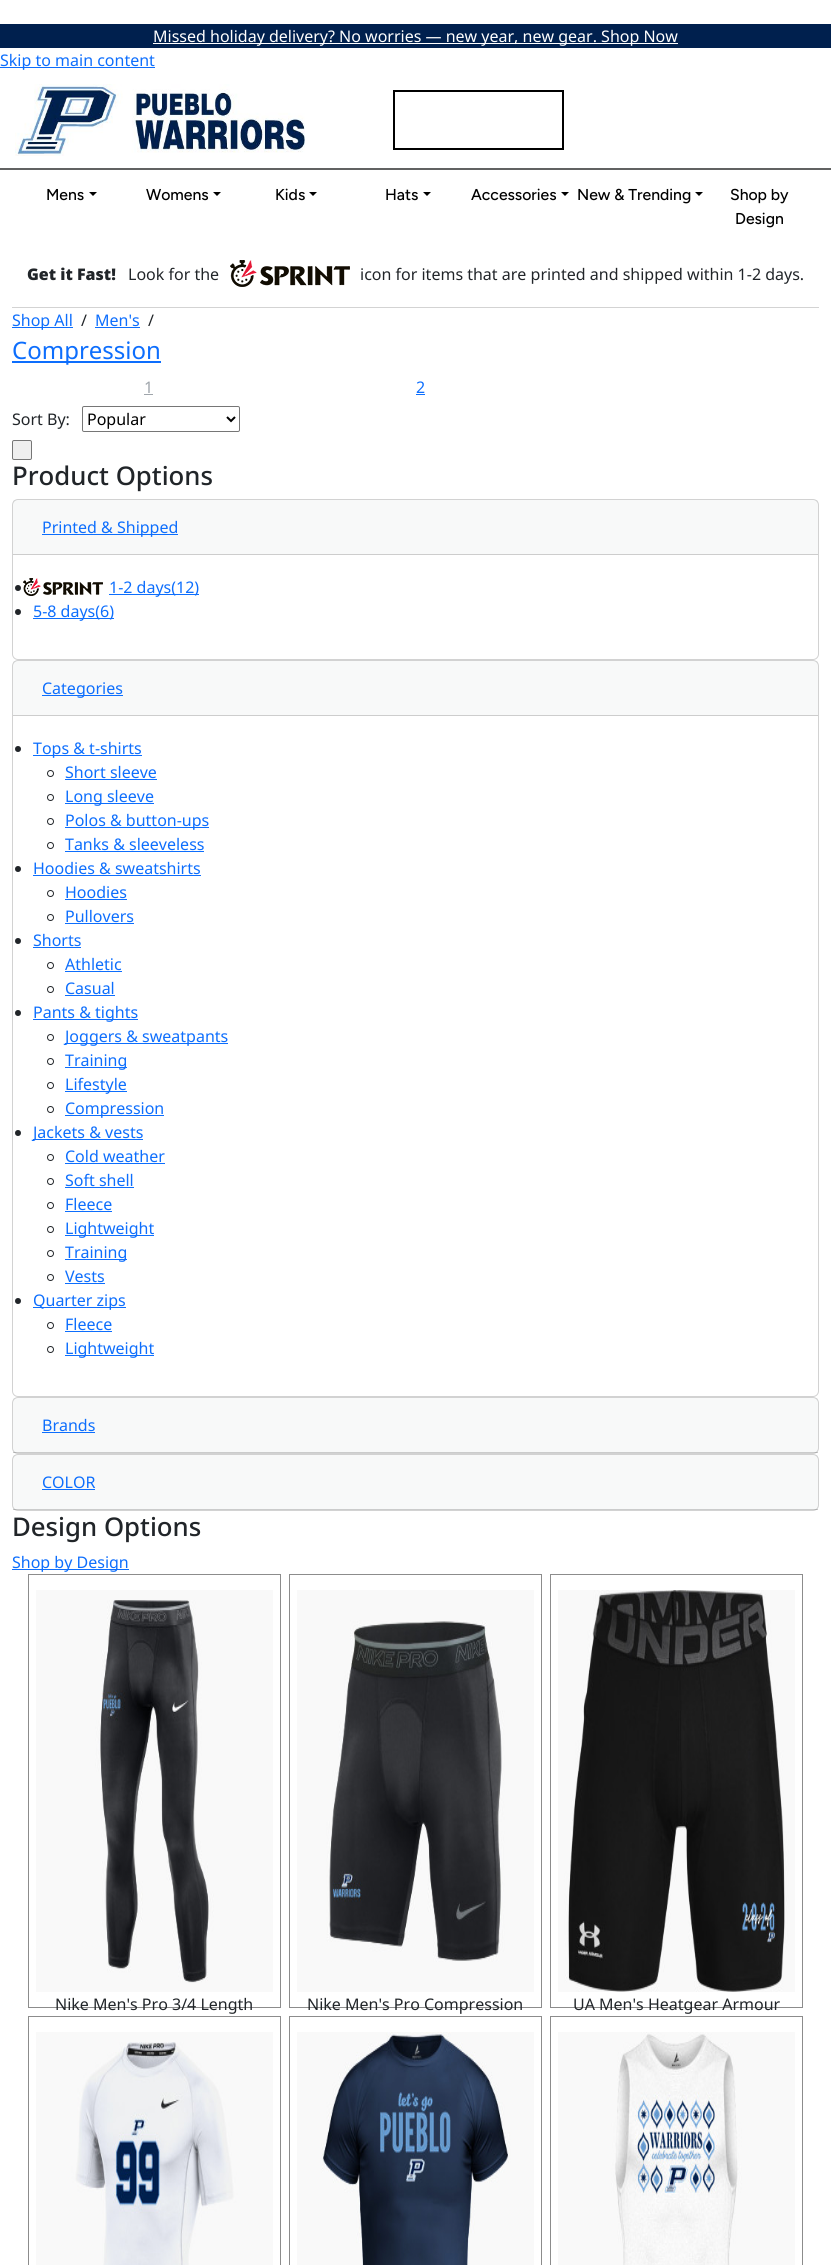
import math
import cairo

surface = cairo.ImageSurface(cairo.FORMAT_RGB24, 831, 2265)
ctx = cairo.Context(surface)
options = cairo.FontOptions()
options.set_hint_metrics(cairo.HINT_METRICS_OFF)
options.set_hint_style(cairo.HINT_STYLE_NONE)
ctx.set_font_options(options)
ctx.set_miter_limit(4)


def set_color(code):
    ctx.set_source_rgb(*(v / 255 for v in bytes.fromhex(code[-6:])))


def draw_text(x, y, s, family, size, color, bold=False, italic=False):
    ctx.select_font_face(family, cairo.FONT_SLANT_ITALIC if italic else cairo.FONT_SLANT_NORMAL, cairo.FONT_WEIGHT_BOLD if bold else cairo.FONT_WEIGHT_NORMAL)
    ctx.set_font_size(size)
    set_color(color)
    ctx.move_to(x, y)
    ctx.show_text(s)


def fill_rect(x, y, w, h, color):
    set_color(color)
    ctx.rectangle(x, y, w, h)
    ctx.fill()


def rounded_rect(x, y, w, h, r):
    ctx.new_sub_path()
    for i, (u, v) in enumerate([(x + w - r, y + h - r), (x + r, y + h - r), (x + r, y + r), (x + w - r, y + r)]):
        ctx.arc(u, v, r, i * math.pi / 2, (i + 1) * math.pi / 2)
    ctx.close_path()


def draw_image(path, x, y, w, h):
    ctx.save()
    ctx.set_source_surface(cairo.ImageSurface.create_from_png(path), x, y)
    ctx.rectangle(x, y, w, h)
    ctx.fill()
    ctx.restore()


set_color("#ffffff")
ctx.paint()
fill_rect(0, 24, 831, 24, "#00204e")
fill_rect(153, 43, 525, 1, "#ffffff")
draw_text(153, 42, "Missed holiday delivery? No worries — new year, new gear. Shop Now", "Noto Sans", 16, "#ffffff")
fill_rect(0, 67, 155, 1, "#0d6efd")
draw_text(0, 66, "Skip to main content", "Noto Sans", 16, "#0d6efd")
fill_rect(0, 168, 831, 2, "#616262")
draw_image("assets/img1.png", 15, 84, 290, 72)
ctx.rectangle(394, 91, 169, 58)
set_color("#000000")
ctx.stroke()
draw_text(46, 200, "Mens", "Figtree Medium", 15.75, "#000000")
ctx.new_path()
ctx.move_to(89, 192)
ctx.line_to(97, 192)
ctx.line_to(93, 196)
ctx.close_path()
ctx.fill()
draw_text(146, 200, "Womens", "Figtree Medium", 15.75, "#000000")
ctx.new_path()
ctx.move_to(213, 192)
ctx.line_to(221, 192)
ctx.line_to(217, 196)
ctx.close_path()
ctx.fill()
draw_text(275, 200, "Kids", "Figtree Medium", 15.75, "#000000")
ctx.new_path()
ctx.move_to(309, 192)
ctx.line_to(317, 192)
ctx.line_to(313, 196)
ctx.close_path()
ctx.fill()
draw_text(385, 200, "Hats", "Figtree Medium", 15.75, "#000000")
ctx.new_path()
ctx.move_to(423, 192)
ctx.line_to(431, 192)
ctx.line_to(427, 196)
ctx.close_path()
ctx.fill()
draw_text(471, 200, "Accessories", "Figtree Medium", 15.75, "#000000")
ctx.new_path()
ctx.move_to(561, 192)
ctx.line_to(569, 192)
ctx.line_to(565, 196)
ctx.close_path()
ctx.fill()
draw_text(577, 200, "New & Trending", "Figtree Medium", 15.75, "#000000")
ctx.new_path()
ctx.move_to(695, 192)
ctx.line_to(703, 192)
ctx.line_to(699, 196)
ctx.close_path()
ctx.fill()
draw_text(730, 200, "Shop by", "Figtree Medium", 15.75, "#000000")
draw_text(735, 224, "Design", "Figtree Medium", 15.75, "#000000")
fill_rect(12, 307, 807, 1, "#d3d3d3")
draw_text(27, 280, "Get it Fast!", "Noto Sans Black", 16, "#212529")
draw_text(128, 280, "Look for the", "Noto Sans", 16, "#212529")
draw_image("assets/img2.png", 230, 260, 120, 27)
draw_text(360, 280, "icon for items that are printed and shipped within 1-2 days.", "Noto Sans", 16, "#212529")
fill_rect(12, 327, 61, 1, "#0d6efd")
draw_text(12, 326, "Shop All", "Noto Sans", 16, "#0d6efd")
draw_text(81, 326, "/", "Noto Sans", 16, "#212529")
draw_text(95, 326, "Men's", "Noto Sans", 16, "#0d6efd")
fill_rect(95, 327, 45, 1, "#0d6efd")
draw_text(148, 326, "/", "Noto Sans", 16, "#212529")
fill_rect(12, 361, 149, 2, "#0d6efd")
draw_text(12, 359, "Compression", "Noto Sans", 24, "#0d6efd")
draw_text(144, 393, "1", "Noto Sans", 16, "#9fa5ab")
fill_rect(144, 394, 9, 1, "#9fa5ab")
draw_text(416, 393, "2", "Noto Sans", 16, "#0d6efd")
fill_rect(416, 394, 9, 1, "#0d6efd")
draw_text(12, 425, "Sort By:", "Noto Sans", 16, "#212529")
rounded_rect(82.5, 406.5, 157, 25, 1.5)
set_color("#767676")
ctx.set_line_width(1)
ctx.stroke()
ctx.new_path()
ctx.move_to(227, 417)
ctx.line_to(231, 421)
ctx.line_to(235, 417)
set_color("#000000")
ctx.set_line_width(2)
ctx.stroke()
draw_text(87, 425, "Popular", "Noto Sans", 16, "#000000")
set_color("#efefef")
rounded_rect(12.5, 440.5, 19, 19, 1.5)
ctx.fill_preserve()
set_color("#767676")
ctx.set_line_width(1)
ctx.stroke()
draw_text(12, 485, "Product Options", "Noto Sans Medium", 25.75, "#212529")
rounded_rect(12.5, 499.5, 806, 160, 5.5)
set_color("#d2d2d2")
ctx.stroke()
ctx.set_source_rgba(0.129, 0.145, 0.161, 0.03)
ctx.rectangle(13, 500, 805, 54)
ctx.fill()
fill_rect(13, 554, 805, 1, "#cdcdcd")
fill_rect(42, 534, 136, 1, "#0d6efd")
draw_text(42, 533, "Printed & Shipped", "Noto Sans", 16, "#0d6efd")
set_color("#212529")
ctx.new_path()
ctx.arc(18, 588, 3, 0, 2 * math.pi)
ctx.fill()
draw_image("assets/img3.png", 23, 578, 80, 18)
fill_rect(109, 594, 90, 1, "#0d6efd")
draw_text(109, 593, "1-2 days(12)", "Noto Sans", 16, "#0d6efd")
set_color("#212529")
ctx.new_path()
ctx.arc(18, 612, 3, 0, 2 * math.pi)
ctx.fill()
fill_rect(33, 618, 81, 1, "#0d6efd")
draw_text(33, 617, "5-8 days(6)", "Noto Sans", 16, "#0d6efd")
rounded_rect(12.5, 660.5, 806, 736, 5.5)
set_color("#d2d2d2")
ctx.stroke()
ctx.set_source_rgba(0.129, 0.145, 0.161, 0.03)
ctx.rectangle(13, 661, 805, 54)
ctx.fill()
fill_rect(13, 715, 805, 1, "#cdcdcd")
fill_rect(42, 695, 81, 1, "#0d6efd")
draw_text(42, 694, "Categories", "Noto Sans", 16, "#0d6efd")
set_color("#212529")
ctx.new_path()
ctx.arc(18, 749, 3, 0, 2 * math.pi)
ctx.fill()
fill_rect(33, 755, 109, 1, "#0d6efd")
draw_text(33, 754, "Tops & t-shirts", "Noto Sans", 16, "#0d6efd")
ctx.new_path()
ctx.arc(50.5, 773.5, 3, 0, 2 * math.pi)
set_color("#212529")
ctx.stroke()
draw_text(65, 778, "Short sleeve", "Noto Sans", 16, "#0d6efd")
fill_rect(65, 779, 92, 1, "#0d6efd")
ctx.new_path()
ctx.arc(50.5, 797.5, 3, 0, 2 * math.pi)
set_color("#212529")
ctx.stroke()
fill_rect(65, 803, 89, 1, "#0d6efd")
draw_text(65, 802, "Long sleeve", "Noto Sans", 16, "#0d6efd")
ctx.new_path()
ctx.arc(50.5, 821.5, 3, 0, 2 * math.pi)
set_color("#212529")
ctx.stroke()
fill_rect(65, 827, 144, 1, "#0d6efd")
draw_text(65, 826, "Polos & button-ups", "Noto Sans", 16, "#0d6efd")
ctx.new_path()
ctx.arc(50.5, 845.5, 3, 0, 2 * math.pi)
set_color("#212529")
ctx.stroke()
draw_text(65, 850, "Tanks & sleeveless", "Noto Sans", 16, "#0d6efd")
fill_rect(65, 851, 139, 1, "#0d6efd")
set_color("#212529")
ctx.new_path()
ctx.arc(18, 869, 3, 0, 2 * math.pi)
ctx.fill()
draw_text(33, 874, "Hoodies & sweatshirts", "Noto Sans", 16, "#0d6efd")
fill_rect(33, 875, 168, 1, "#0d6efd")
ctx.new_path()
ctx.arc(50.5, 893.5, 3, 0, 2 * math.pi)
set_color("#212529")
ctx.stroke()
draw_text(65, 898, "Hoodies", "Noto Sans", 16, "#0d6efd")
fill_rect(65, 899, 62, 1, "#0d6efd")
ctx.new_path()
ctx.arc(50.5, 917.5, 3, 0, 2 * math.pi)
set_color("#212529")
ctx.stroke()
draw_text(65, 922, "Pullovers", "Noto Sans", 16, "#0d6efd")
fill_rect(65, 923, 69, 1, "#0d6efd")
set_color("#212529")
ctx.new_path()
ctx.arc(18, 941, 3, 0, 2 * math.pi)
ctx.fill()
draw_text(33, 946, "Shorts", "Noto Sans", 16, "#0d6efd")
fill_rect(33, 947, 48, 1, "#0d6efd")
ctx.new_path()
ctx.arc(50.5, 965.5, 3, 0, 2 * math.pi)
set_color("#212529")
ctx.stroke()
draw_text(65, 970, "Athletic", "Noto Sans", 16, "#0d6efd")
fill_rect(65, 971, 57, 1, "#0d6efd")
ctx.new_path()
ctx.arc(50.5, 989.5, 3, 0, 2 * math.pi)
set_color("#212529")
ctx.stroke()
draw_text(65, 994, "Casual", "Noto Sans", 16, "#0d6efd")
fill_rect(65, 995, 50, 1, "#0d6efd")
set_color("#212529")
ctx.new_path()
ctx.arc(18, 1013, 3, 0, 2 * math.pi)
ctx.fill()
fill_rect(33, 1019, 105, 1, "#0d6efd")
draw_text(33, 1018, "Pants & tights", "Noto Sans", 16, "#0d6efd")
ctx.new_path()
ctx.arc(50.5, 1037.5, 3, 0, 2 * math.pi)
set_color("#212529")
ctx.stroke()
fill_rect(65, 1043, 163, 1, "#0d6efd")
draw_text(65, 1042, "Joggers & sweatpants", "Noto Sans", 16, "#0d6efd")
ctx.new_path()
ctx.arc(50.5, 1061.5, 3, 0, 2 * math.pi)
set_color("#212529")
ctx.stroke()
fill_rect(65, 1067, 62, 1, "#0d6efd")
draw_text(65, 1066, "Training", "Noto Sans", 16, "#0d6efd")
ctx.new_path()
ctx.arc(50.5, 1085.5, 3, 0, 2 * math.pi)
set_color("#212529")
ctx.stroke()
fill_rect(65, 1091, 62, 1, "#0d6efd")
draw_text(65, 1090, "Lifestyle", "Noto Sans", 16, "#0d6efd")
ctx.new_path()
ctx.arc(50.5, 1109.5, 3, 0, 2 * math.pi)
set_color("#212529")
ctx.stroke()
fill_rect(65, 1115, 99, 1, "#0d6efd")
draw_text(65, 1114, "Compression", "Noto Sans", 16, "#0d6efd")
set_color("#212529")
ctx.new_path()
ctx.arc(18, 1133, 3, 0, 2 * math.pi)
ctx.fill()
fill_rect(33, 1139, 110, 1, "#0d6efd")
draw_text(33, 1138, "Jackets & vests", "Noto Sans", 16, "#0d6efd")
ctx.new_path()
ctx.arc(50.5, 1157.5, 3, 0, 2 * math.pi)
set_color("#212529")
ctx.stroke()
draw_text(65, 1162, "Cold weather", "Noto Sans", 16, "#0d6efd")
fill_rect(65, 1163, 100, 1, "#0d6efd")
ctx.new_path()
ctx.arc(50.5, 1181.5, 3, 0, 2 * math.pi)
set_color("#212529")
ctx.stroke()
draw_text(65, 1186, "Soft shell", "Noto Sans", 16, "#0d6efd")
fill_rect(65, 1187, 69, 1, "#0d6efd")
ctx.new_path()
ctx.arc(50.5, 1205.5, 3, 0, 2 * math.pi)
set_color("#212529")
ctx.stroke()
draw_text(65, 1210, "Fleece", "Noto Sans", 16, "#0d6efd")
fill_rect(65, 1211, 47, 1, "#0d6efd")
ctx.new_path()
ctx.arc(50.5, 1229.5, 3, 0, 2 * math.pi)
set_color("#212529")
ctx.stroke()
fill_rect(65, 1235, 89, 1, "#0d6efd")
draw_text(65, 1234, "Lightweight", "Noto Sans", 16, "#0d6efd")
ctx.new_path()
ctx.arc(50.5, 1253.5, 3, 0, 2 * math.pi)
set_color("#212529")
ctx.stroke()
fill_rect(65, 1259, 62, 1, "#0d6efd")
draw_text(65, 1258, "Training", "Noto Sans", 16, "#0d6efd")
ctx.new_path()
ctx.arc(50.5, 1277.5, 3, 0, 2 * math.pi)
set_color("#212529")
ctx.stroke()
draw_text(65, 1282, "Vests", "Noto Sans", 16, "#0d6efd")
fill_rect(65, 1283, 40, 1, "#0d6efd")
set_color("#212529")
ctx.new_path()
ctx.arc(18, 1301, 3, 0, 2 * math.pi)
ctx.fill()
fill_rect(33, 1307, 93, 1, "#0d6efd")
draw_text(33, 1306, "Quarter zips", "Noto Sans", 16, "#0d6efd")
ctx.new_path()
ctx.arc(50.5, 1325.5, 3, 0, 2 * math.pi)
set_color("#212529")
ctx.stroke()
draw_text(65, 1330, "Fleece", "Noto Sans", 16, "#0d6efd")
fill_rect(65, 1331, 47, 1, "#0d6efd")
ctx.new_path()
ctx.arc(50.5, 1349.5, 3, 0, 2 * math.pi)
set_color("#212529")
ctx.stroke()
fill_rect(65, 1355, 89, 1, "#0d6efd")
draw_text(65, 1354, "Lightweight", "Noto Sans", 16, "#0d6efd")
rounded_rect(12.5, 1397.5, 806, 56, 5.5)
set_color("#d2d2d2")
ctx.stroke()
ctx.set_source_rgba(0.129, 0.145, 0.161, 0.03)
ctx.rectangle(13, 1398, 805, 55)
ctx.fill()
ctx.set_source_rgba(0, 0, 0, 0.18)
ctx.rectangle(13, 1452, 805, 1)
ctx.fill()
draw_text(42, 1431, "Brands", "Noto Sans", 16, "#0d6efd")
fill_rect(42, 1432, 53, 1, "#0d6efd")
rounded_rect(12.5, 1454.5, 806, 56, 5.5)
set_color("#d2d2d2")
ctx.stroke()
ctx.set_source_rgba(0.129, 0.145, 0.161, 0.03)
ctx.rectangle(13, 1455, 805, 55)
ctx.fill()
ctx.set_source_rgba(0, 0, 0, 0.18)
ctx.rectangle(13, 1509, 805, 1)
ctx.fill()
draw_text(42, 1488, "COLOR", "Noto Sans", 16, "#0d6efd")
fill_rect(42, 1489, 53, 1, "#0d6efd")
draw_text(12, 1536, "Design Options", "Noto Sans Medium", 25.75, "#212529")
fill_rect(12, 1569, 117, 1, "#0d6efd")
draw_text(12, 1568, "Shop by Design", "Noto Sans", 16, "#0d6efd")
ctx.rectangle(28.5, 1574.5, 252, 433)
set_color("#8c8c8c")
ctx.stroke()
draw_image("assets/img4.png", 36, 1590, 237, 402)
draw_text(55, 2010, "Nike Men's Pro 3/4 Length", "Noto Sans", 16, "#212529")
ctx.rectangle(289.5, 1574.5, 252, 433)
set_color("#8c8c8c")
ctx.stroke()
draw_image("assets/img5.png", 297, 1590, 237, 402)
draw_text(307, 2010, "Nike Men's Pro Compression", "Noto Sans", 16, "#212529")
ctx.rectangle(550.5, 1574.5, 252, 433)
set_color("#8c8c8c")
ctx.stroke()
draw_image("assets/img6.png", 558, 1590, 237, 402)
draw_text(573, 2010, "UA Men's Heatgear Armour", "Noto Sans", 16, "#212529")
ctx.rectangle(28.5, 2016.5, 252, 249)
set_color("#8c8c8c")
ctx.stroke()
draw_image("assets/img7.png", 36, 2032, 237, 233)
ctx.rectangle(289.5, 2016.5, 252, 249)
ctx.stroke()
draw_image("assets/img8.png", 297, 2032, 237, 233)
ctx.rectangle(550.5, 2016.5, 252, 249)
ctx.stroke()
draw_image("assets/img9.png", 558, 2032, 237, 233)
surface.write_to_png("output.png")
